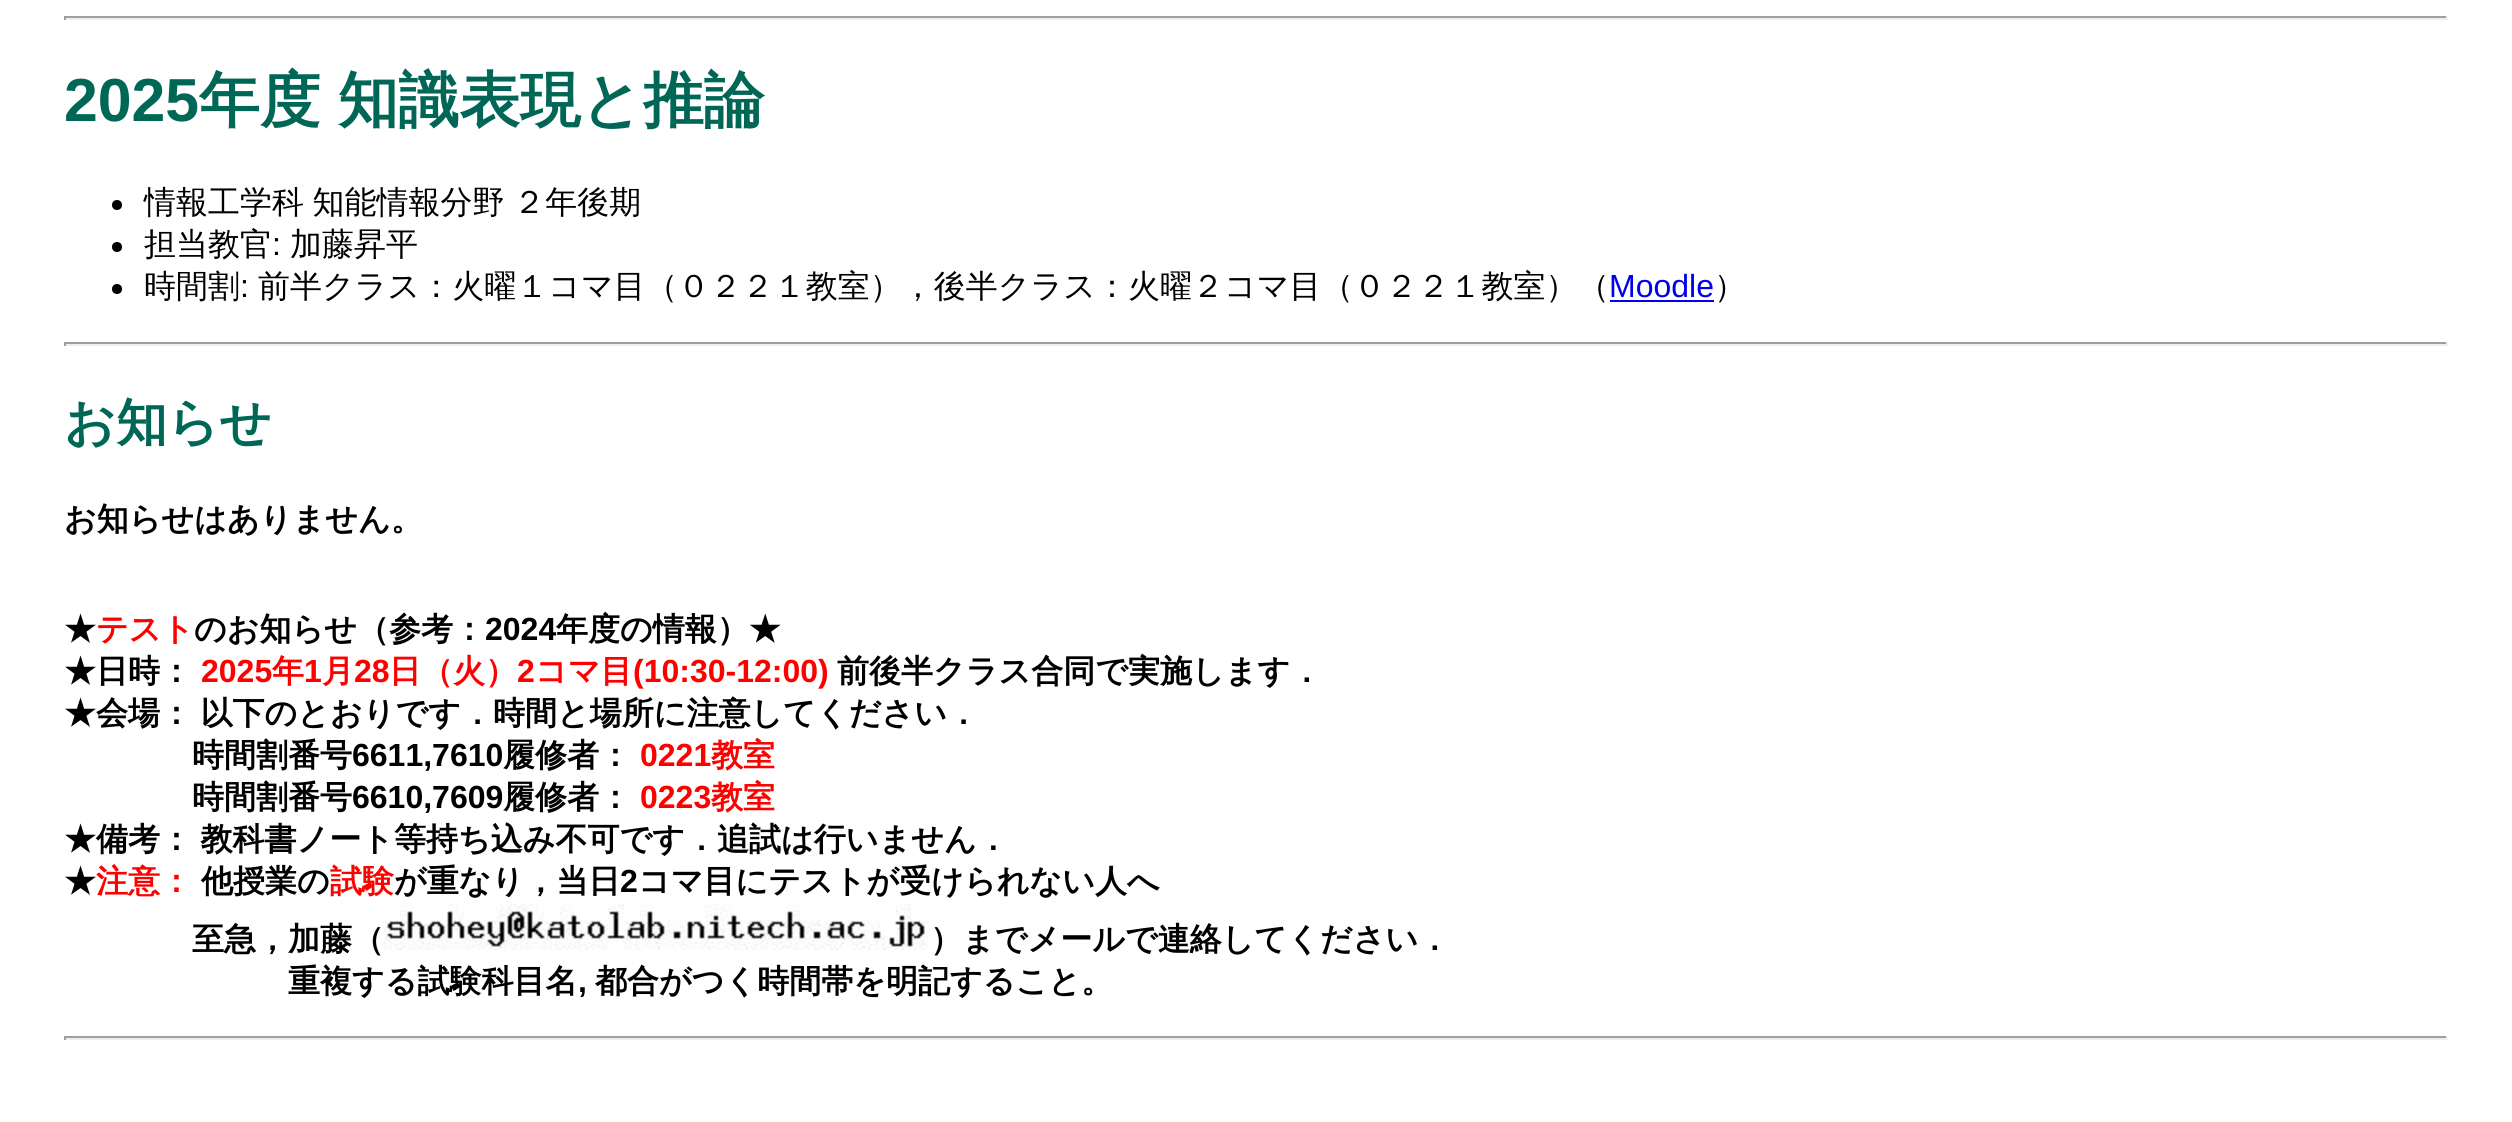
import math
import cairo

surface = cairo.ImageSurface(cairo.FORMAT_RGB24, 2512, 1122)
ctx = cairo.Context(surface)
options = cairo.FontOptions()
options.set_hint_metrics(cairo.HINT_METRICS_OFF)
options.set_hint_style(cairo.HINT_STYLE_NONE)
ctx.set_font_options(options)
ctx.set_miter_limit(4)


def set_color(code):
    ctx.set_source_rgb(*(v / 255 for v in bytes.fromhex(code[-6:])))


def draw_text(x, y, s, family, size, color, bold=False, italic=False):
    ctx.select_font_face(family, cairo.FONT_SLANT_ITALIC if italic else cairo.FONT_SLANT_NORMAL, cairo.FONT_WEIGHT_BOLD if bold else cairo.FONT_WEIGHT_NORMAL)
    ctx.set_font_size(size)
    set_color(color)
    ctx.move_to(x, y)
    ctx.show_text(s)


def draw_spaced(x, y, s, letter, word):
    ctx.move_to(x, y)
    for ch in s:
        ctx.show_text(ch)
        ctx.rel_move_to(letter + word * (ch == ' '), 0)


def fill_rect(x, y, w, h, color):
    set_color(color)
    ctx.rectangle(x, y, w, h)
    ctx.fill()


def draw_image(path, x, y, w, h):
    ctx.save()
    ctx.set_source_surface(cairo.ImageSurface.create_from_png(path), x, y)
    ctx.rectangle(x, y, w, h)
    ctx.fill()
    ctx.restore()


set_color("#ffffff")
ctx.paint()
fill_rect(64, 16, 2384, 2, "#9f9f9f")
fill_rect(2446, 16, 2, 4, "#eeeeee")
fill_rect(64, 18, 2384, 2, "#eeeeee")
fill_rect(64, 16, 2, 4, "#9f9f9f")
draw_text(64, 121, "2025", "Liberation Sans", 60.75, "#006655", bold=True)
ctx.select_font_face("WenQuanYi Zen Hei", cairo.FONT_SLANT_NORMAL, cairo.FONT_WEIGHT_BOLD)
draw_spaced(199, 121, "年度 知識表現と推論", 0, -1)
set_color("#000000")
ctx.new_path()
ctx.arc(117, 205, 5, 0, 2 * math.pi)
ctx.fill()
ctx.select_font_face("WenQuanYi Zen Hei Medium")
ctx.set_font_size(32)
draw_spaced(144, 213, "情報工学科 知能情報分野 ２年後期", 0, -1)
ctx.new_path()
ctx.arc(117, 247, 5, 0, 2 * math.pi)
ctx.fill()
draw_text(144, 255, "担当教官", "WenQuanYi Zen Hei Medium", 32, "#000000")
draw_text(272, 255, ":", "Liberation Sans", 32, "#000000")
draw_text(290, 255, "加藤昇平", "WenQuanYi Zen Hei Medium", 32, "#000000")
ctx.new_path()
ctx.arc(117, 289, 5, 0, 2 * math.pi)
ctx.fill()
draw_text(144, 297, "時間割", "WenQuanYi Zen Hei Medium", 32, "#000000")
draw_text(240, 297, ":", "Liberation Sans", 32, "#000000")
draw_text(258, 297, "前半クラス：火曜１コマ目（０２２１教室），後半クラス：火曜２コマ目（０２２１教室）（", "WenQuanYi Zen Hei Medium", 32, "#000000")
draw_text(1609, 297, "Moodle", "Liberation Sans", 32, "#0000ee")
fill_rect(1610, 300, 104, 2, "#0000ee")
draw_text(1714, 297, "）", "WenQuanYi Zen Hei Medium", 32, "#000000")
fill_rect(64, 342, 2384, 2, "#9f9f9f")
fill_rect(2446, 342, 2, 4, "#eeeeee")
fill_rect(64, 344, 2384, 2, "#eeeeee")
fill_rect(64, 342, 2, 4, "#9f9f9f")
draw_text(64, 440, "お知らせ", "WenQuanYi Zen Hei", 51, "#006655", bold=True)
draw_text(64, 530, "お知らせはありません。", "WenQuanYi Zen Hei", 32, "#000000", bold=True)
draw_text(64, 640, "★", "WenQuanYi Zen Hei", 32, "#000000", bold=True)
draw_text(96, 640, "テスト", "WenQuanYi Zen Hei", 32, "#ff0000", bold=True)
draw_text(194, 640, "のお知らせ（参考：", "WenQuanYi Zen Hei", 32, "#000000", bold=True)
draw_text(485, 640, "2024", "Liberation Sans", 32, "#000000", bold=True)
draw_text(556, 640, "年度の情報）★", "WenQuanYi Zen Hei", 32, "#000000", bold=True)
draw_text(64, 682, "★日時：", "WenQuanYi Zen Hei", 32, "#000000", bold=True)
draw_text(201, 682, "2025", "Liberation Sans", 32, "#ff0000", bold=True)
draw_text(272, 682, "年", "WenQuanYi Zen Hei", 32, "#ff0000", bold=True)
draw_text(304, 682, "1", "Liberation Sans", 32, "#ff0000", bold=True)
draw_text(322, 682, "月", "WenQuanYi Zen Hei", 32, "#ff0000", bold=True)
draw_text(354, 682, "28", "Liberation Sans", 32, "#ff0000", bold=True)
draw_text(389, 682, "日（火）", "WenQuanYi Zen Hei", 32, "#ff0000", bold=True)
draw_text(517, 682, "2", "Liberation Sans", 32, "#ff0000", bold=True)
draw_text(535, 682, "コマ目", "WenQuanYi Zen Hei", 32, "#ff0000", bold=True)
draw_text(633, 682, "(10:30-12:00)", "Liberation Sans", 32, "#ff0000", bold=True)
draw_text(837, 682, "前後半クラス合同で実施します．", "WenQuanYi Zen Hei", 32, "#000000", bold=True)
draw_spaced(64, 724, "★会場： 以下のとおりです．時間と場所に注意してください．", 0, -1)
draw_text(192, 766, "時間割番号", "WenQuanYi Zen Hei", 32, "#000000", bold=True)
draw_text(352, 766, "6611,7610", "Liberation Sans", 32, "#000000", bold=True)
draw_text(503, 766, "履修者：", "WenQuanYi Zen Hei", 32, "#000000", bold=True)
draw_text(640, 766, "0221", "Liberation Sans", 32, "#ff0000", bold=True)
draw_text(711, 766, "教室", "WenQuanYi Zen Hei", 32, "#ff0000", bold=True)
draw_text(192, 808, "時間割番号", "WenQuanYi Zen Hei", 32, "#000000", bold=True)
draw_text(352, 808, "6610,7609", "Liberation Sans", 32, "#000000", bold=True)
draw_text(503, 808, "履修者：", "WenQuanYi Zen Hei", 32, "#000000", bold=True)
draw_text(640, 808, "0223", "Liberation Sans", 32, "#ff0000", bold=True)
draw_text(711, 808, "教室", "WenQuanYi Zen Hei", 32, "#ff0000", bold=True)
set_color("#000000")
draw_spaced(64, 850, "★備考： 教科書ノート等持ち込み不可です．追試は行いません．", 0, -1)
draw_text(64, 892, "★", "WenQuanYi Zen Hei", 32, "#000000", bold=True)
draw_text(96, 892, "注意：", "WenQuanYi Zen Hei", 32, "#ff0000", bold=True)
draw_text(201, 892, "他授業の", "WenQuanYi Zen Hei", 32, "#000000", bold=True)
draw_text(330, 892, "試験", "WenQuanYi Zen Hei", 32, "#ff0000", bold=True)
draw_text(394, 892, "が重なり，当日", "WenQuanYi Zen Hei", 32, "#000000", bold=True)
draw_text(620, 892, "2", "Liberation Sans", 32, "#000000", bold=True)
draw_text(638, 892, "コマ目にテストが受けられない人へ", "WenQuanYi Zen Hei", 32, "#000000", bold=True)
draw_text(192, 950, "至急，加藤（", "WenQuanYi Zen Hei", 32, "#000000", bold=True)
draw_image("assets/img1.png", 384, 904, 544, 46)
draw_text(930, 950, "）までメールで連絡してください．", "WenQuanYi Zen Hei", 32, "#000000", bold=True)
draw_text(288, 992, "重複する試験科目名", "WenQuanYi Zen Hei", 32, "#000000", bold=True)
draw_text(578, 992, ",", "Liberation Sans", 32, "#000000", bold=True)
draw_text(595, 992, "都合がつく時間帯を明記すること。", "WenQuanYi Zen Hei", 32, "#000000", bold=True)
fill_rect(64, 1036, 2384, 2, "#9f9f9f")
fill_rect(2446, 1036, 2, 4, "#eeeeee")
fill_rect(64, 1038, 2384, 2, "#eeeeee")
fill_rect(64, 1036, 2, 4, "#9f9f9f")
surface.write_to_png("output.png")
